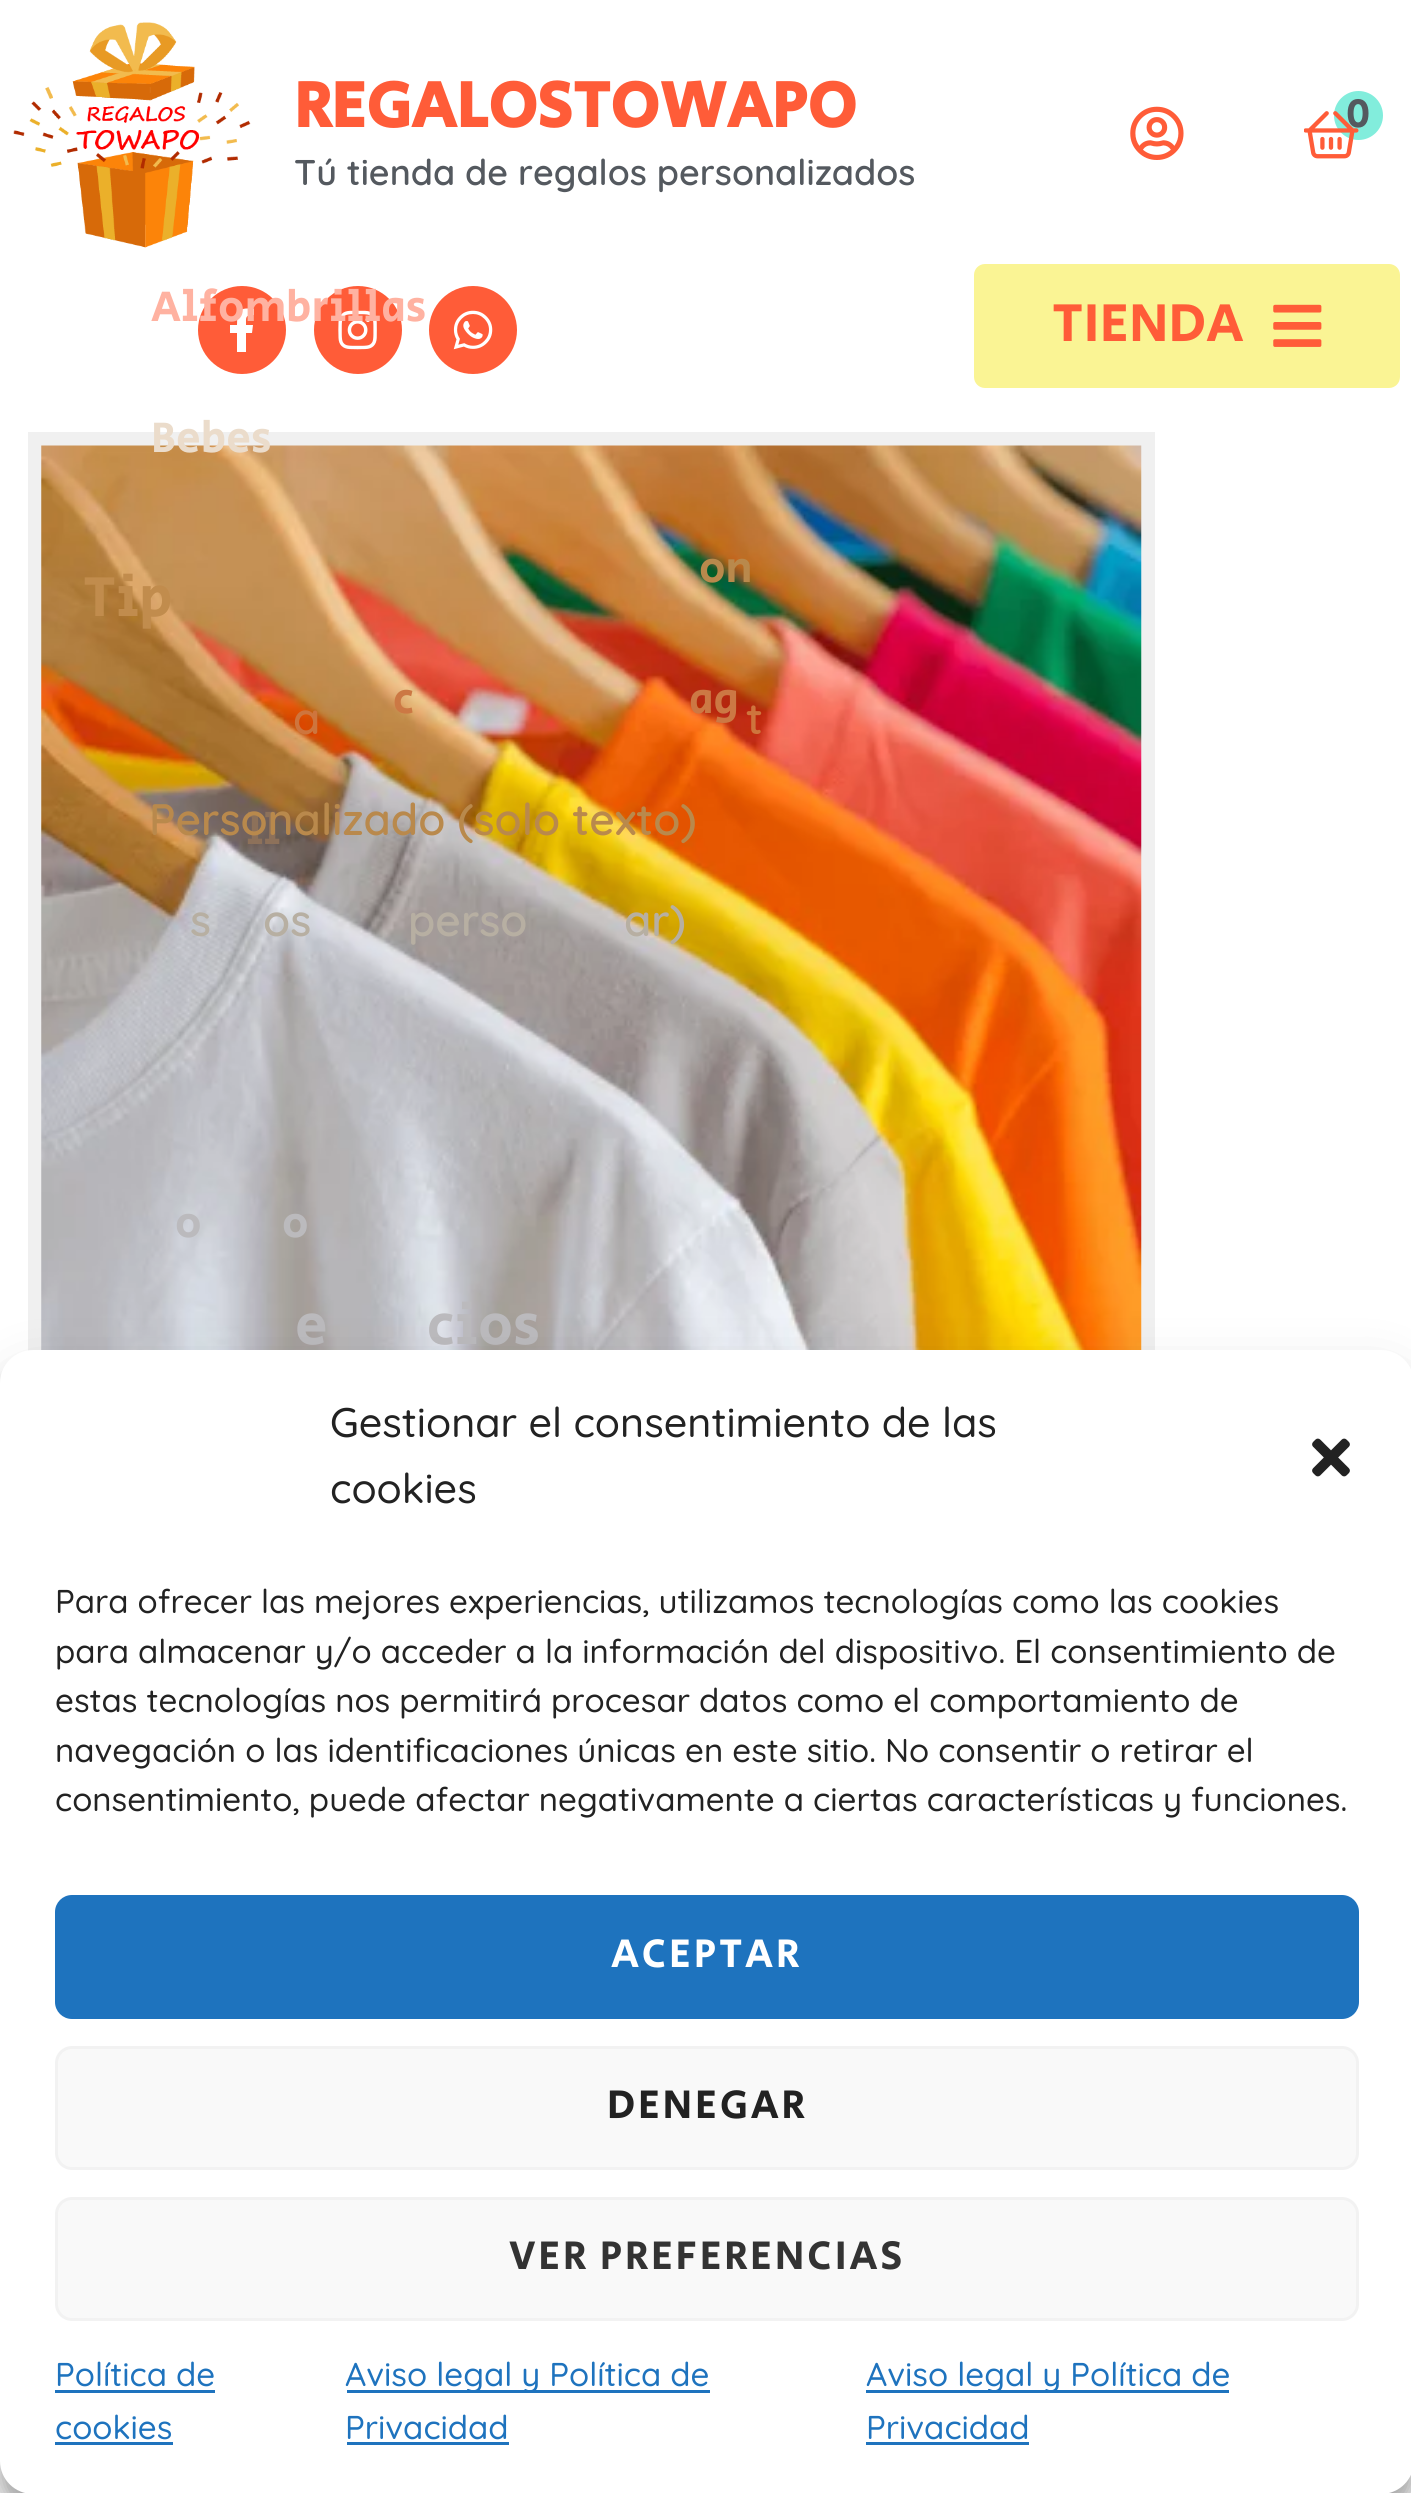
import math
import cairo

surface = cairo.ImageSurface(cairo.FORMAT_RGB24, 1411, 2493)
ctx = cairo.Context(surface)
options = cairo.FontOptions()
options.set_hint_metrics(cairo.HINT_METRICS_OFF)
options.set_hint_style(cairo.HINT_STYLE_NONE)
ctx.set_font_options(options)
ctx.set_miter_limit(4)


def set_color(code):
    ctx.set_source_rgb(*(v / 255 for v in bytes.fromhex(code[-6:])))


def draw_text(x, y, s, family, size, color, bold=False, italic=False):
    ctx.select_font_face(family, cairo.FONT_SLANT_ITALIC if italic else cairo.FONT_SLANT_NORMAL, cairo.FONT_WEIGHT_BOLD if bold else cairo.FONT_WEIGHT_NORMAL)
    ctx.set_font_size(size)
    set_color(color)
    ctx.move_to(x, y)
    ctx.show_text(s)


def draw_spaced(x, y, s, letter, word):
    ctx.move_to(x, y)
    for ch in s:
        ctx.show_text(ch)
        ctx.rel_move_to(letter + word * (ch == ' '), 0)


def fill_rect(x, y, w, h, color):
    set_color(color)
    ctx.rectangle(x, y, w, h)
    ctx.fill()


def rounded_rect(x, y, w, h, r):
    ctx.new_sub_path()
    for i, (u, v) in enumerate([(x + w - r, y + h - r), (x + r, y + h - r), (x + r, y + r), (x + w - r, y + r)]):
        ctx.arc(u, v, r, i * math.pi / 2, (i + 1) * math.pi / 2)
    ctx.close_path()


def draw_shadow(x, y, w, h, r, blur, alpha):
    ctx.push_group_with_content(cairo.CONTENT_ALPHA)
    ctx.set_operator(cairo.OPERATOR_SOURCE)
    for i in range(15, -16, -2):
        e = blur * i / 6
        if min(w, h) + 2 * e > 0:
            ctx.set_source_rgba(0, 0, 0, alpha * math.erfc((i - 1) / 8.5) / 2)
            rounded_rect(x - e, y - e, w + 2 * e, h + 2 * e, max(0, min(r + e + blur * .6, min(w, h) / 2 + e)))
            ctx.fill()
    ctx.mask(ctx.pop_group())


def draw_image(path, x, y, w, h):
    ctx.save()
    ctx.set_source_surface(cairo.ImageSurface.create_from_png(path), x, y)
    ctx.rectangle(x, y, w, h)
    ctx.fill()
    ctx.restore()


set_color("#ffffff")
ctx.paint()
draw_image("assets/img1.png", 13, 22, 238, 226)
draw_text(294, 127, "REGALOSTOWAPO", "Secular One", 66, "#ff5c38", bold=True)
draw_text(294, 185, "Tú tienda de regalos personalizados", "Quicksand SemiBold", 35.75, "#54595f")
draw_image("assets/img2.png", 1130, 106, 54, 54)
set_color("#82eddc")
ctx.arc(1358.5, 115.5, 24.5, 0, 2 * math.pi)
ctx.fill()
draw_text(1346, 127, "0", "Secular One", 41.25, "#54595f")
draw_image("assets/img3.png", 1304, 111, 55, 48)
set_color("#ff5c38")
ctx.arc(242, 330, 44, 0, 2 * math.pi)
ctx.fill()
set_color("#ffffff")
ctx.new_path()
ctx.move_to(252, 333)
ctx.line_to(246, 333)
ctx.line_to(246, 352)
ctx.line_to(237, 352)
ctx.line_to(237, 333)
ctx.line_to(230, 333)
ctx.line_to(230, 325)
ctx.line_to(237, 325)
ctx.curve_to(237, 310, 240, 307, 254, 309)
ctx.line_to(254, 315)
ctx.curve_to(245, 315, 246, 317, 246, 325)
ctx.line_to(253, 325)
ctx.close_path()
ctx.fill()
set_color("#ff5c38")
ctx.arc(358, 330, 44, 0, 2 * math.pi)
ctx.fill()
draw_image("assets/img4.png", 338, 310, 39, 40)
ctx.arc(473, 330, 44, 0, 2 * math.pi)
ctx.fill()
draw_image("assets/img5.png", 453, 310, 40, 40)
set_color("#faf494")
rounded_rect(974, 264, 426, 124, 11)
ctx.fill()
draw_text(1052, 341, "TIENDA", "Secular One", 55, "#ff5c38")
draw_image("assets/img6.png", 1273, 304, 49, 43)
ctx.rectangle(35, 439, 1113, 1113)
set_color("#f0f0f0")
ctx.set_line_width(14)
ctx.stroke()
draw_image("assets/img7.png", 41, 445, 1101, 905)
draw_text(151, 321, "Alfombrillas", "Secular One", 44, "#ffb2a1")
draw_text(151, 452, "Bebes", "Secular One", 44, "#ebdccb")
draw_text(699, 582, "on", "Secular One", 44, "#b9894c")
draw_text(393, 713, "c", "Secular One", 44, "#cc7844")
draw_text(689, 713, "ag", "Secular One", 44, "#cc7844")
draw_text(246, 844, "ll", "Secular One", 44, "#8d715a")
draw_text(175, 1237, "o", "Secular One", 44, "#bbbabd")
draw_text(282, 1237, "o", "Secular One", 44, "#bbbabd")
draw_text(83, 616, "Tip", "Secular One", 58, "#c18c4d")
draw_text(293, 734, "a", "Quicksand SemiBold", 44, "#ce753d")
draw_text(746, 734, "t", "Quicksand SemiBold", 44, "#ce753d")
draw_text(149, 835, "Personalizado (solo texto)", "Quicksand SemiBold", 44, "#b9894c")
draw_text(190, 936, "s", "Quicksand SemiBold", 44, "#b7afa2")
draw_text(263, 936, "os", "Quicksand SemiBold", 44, "#b7afa2")
draw_text(408, 936, "perso", "Quicksand SemiBold", 44, "#b7afa2")
draw_text(624, 936, "ar)", "Quicksand SemiBold", 44, "#b7afa2")
draw_text(295, 1344, "e", "Secular One", 58, "#bbbabd")
draw_text(427, 1344, "cios", "Secular One", 58, "#bbbabd")
set_color("#000000")
draw_shadow(0, 1367, 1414, 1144, 33, 8, 0.23)
draw_shadow(0, 1378, 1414, 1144, 33, 27.5, 0.19)
set_color("#ffffff")
rounded_rect(0, 1350, 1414, 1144, 33)
ctx.fill()
draw_text(330, 1437, "Gestionar el consentimiento de las", "Quicksand Medium", 41.25, "#222222")
draw_text(330, 1503, "cookies", "Quicksand Medium", 41.25, "#222222")
draw_image("assets/img8.png", 1312, 1438, 38, 39)
draw_text(55, 1613, "Para ofrecer las mejores experiencias, utilizamos tecnologías como las cookies", "Quicksand Medium", 33, "#222222")
draw_text(55, 1663, "para almacenar y/o acceder a la información del dispositivo. El consentimiento de", "Quicksand Medium", 33, "#222222")
draw_text(55, 1712, "estas tecnologías nos permitirá procesar datos como el comportamiento de", "Quicksand Medium", 33, "#222222")
draw_text(55, 1762, "navegación o las identificaciones únicas en este sitio. No consentir o retirar el", "Quicksand Medium", 33, "#222222")
draw_text(55, 1811, "consentimiento, puede afectar negativamente a ciertas características y funciones.", "Quicksand Medium", 33, "#222222")
set_color("#1e73be")
rounded_rect(56.5, 1896.5, 1301, 121, 15.5)
ctx.fill_preserve()
ctx.set_line_width(3)
ctx.stroke()
ctx.select_font_face("Secular One")
ctx.set_font_size(41.25)
set_color("#ffffff")
draw_spaced(611, 1967, "ACEPTAR", 2.75, 0)
set_color("#f9f9f9")
rounded_rect(56.5, 2047.5, 1301, 121, 15.5)
ctx.fill_preserve()
set_color("#f2f2f2")
ctx.stroke()
set_color("#222222")
draw_spaced(607, 2118, "DENEGAR", 2.75, 0)
set_color("#f9f9f9")
rounded_rect(56.5, 2198.5, 1301, 121, 15.5)
ctx.fill_preserve()
set_color("#f2f2f2")
ctx.stroke()
set_color("#333333")
draw_spaced(509, 2269, "VER PREFERENCIAS", 2.75, 0)
draw_text(55, 2386, "Política de", "Quicksand Medium", 33, "#1e73be")
fill_rect(55, 2390, 160, 3, "#1e73be")
draw_text(55, 2439, "cookies", "Quicksand Medium", 33, "#1e73be")
fill_rect(55, 2442, 118, 3, "#1e73be")
fill_rect(347, 2390, 363, 3, "#1e73be")
draw_text(345, 2386, "Aviso legal y Política de", "Quicksand Medium", 33, "#1e73be")
draw_text(345, 2439, "Privacidad", "Quicksand Medium", 33, "#1e73be")
fill_rect(347, 2442, 162, 3, "#1e73be")
fill_rect(866, 2390, 363, 3, "#1e73be")
draw_text(866, 2386, "Aviso legal y Política de", "Quicksand Medium", 33, "#1e73be")
draw_text(866, 2439, "Privacidad", "Quicksand Medium", 33, "#1e73be")
fill_rect(866, 2442, 163, 3, "#1e73be")
surface.write_to_png("output.png")
